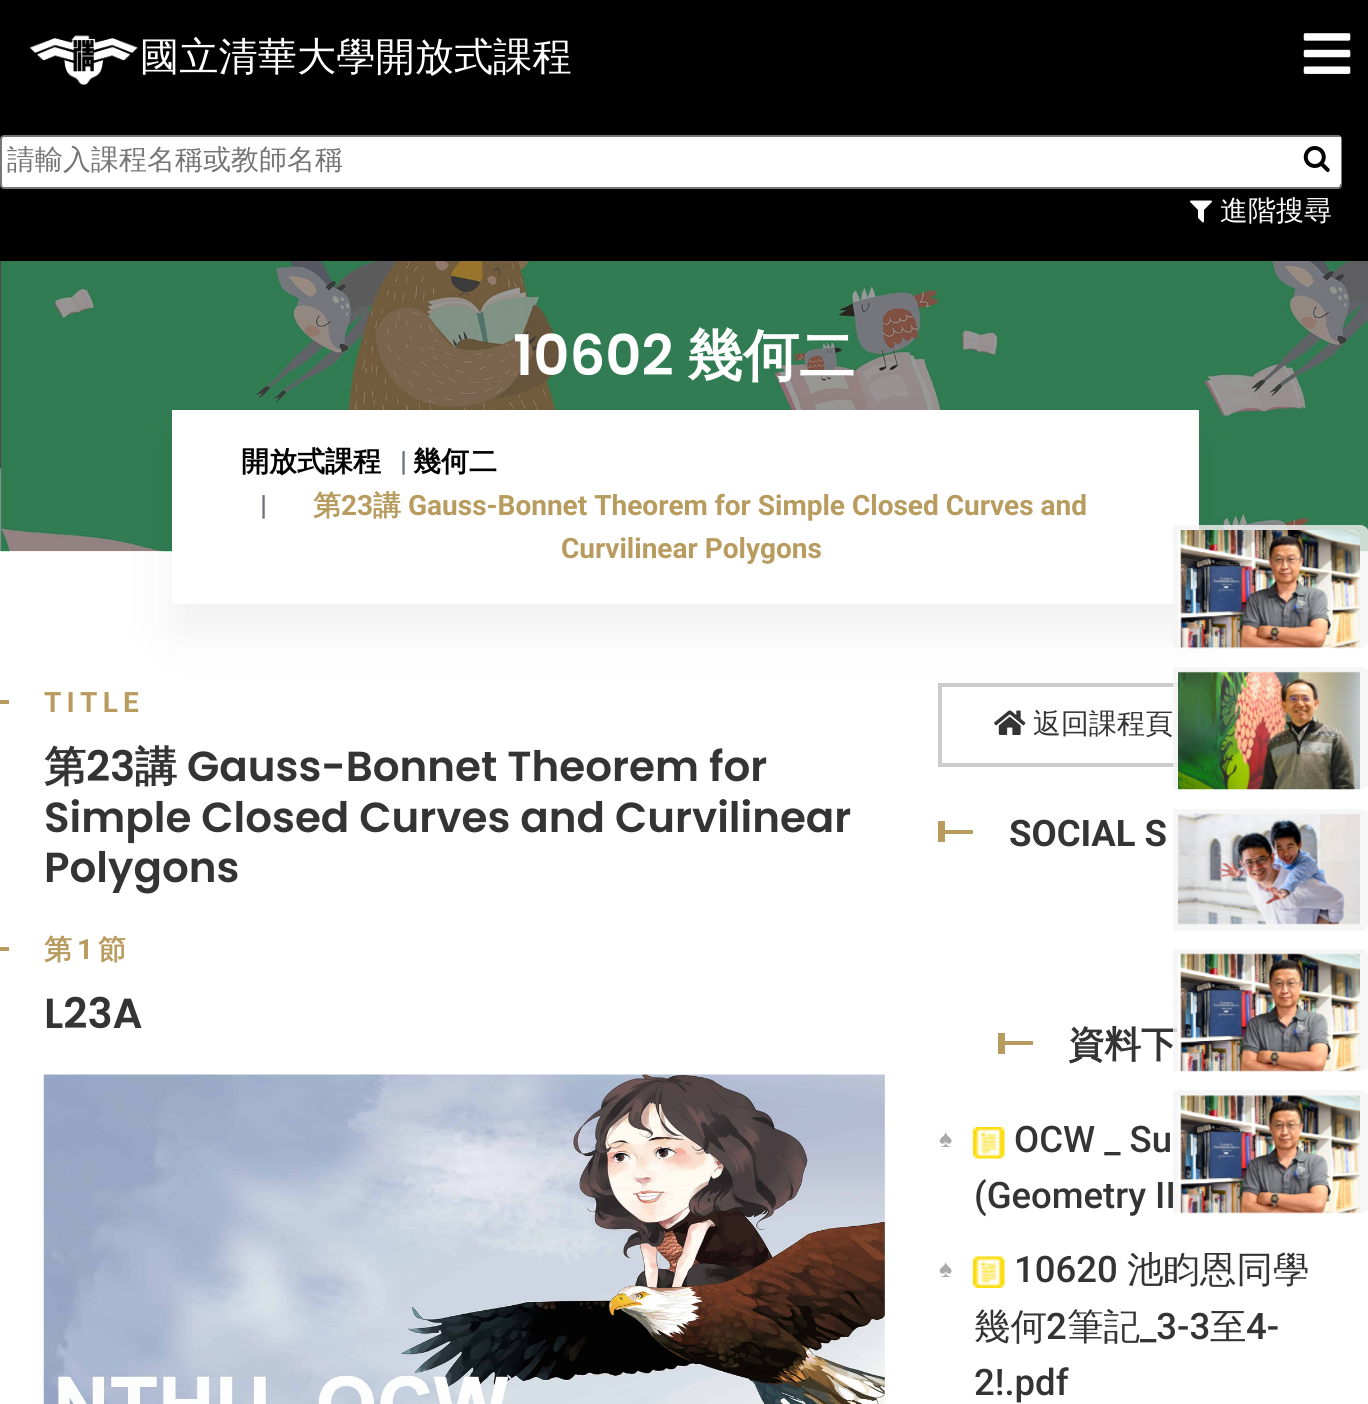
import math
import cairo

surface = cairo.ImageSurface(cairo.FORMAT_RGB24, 1368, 1404)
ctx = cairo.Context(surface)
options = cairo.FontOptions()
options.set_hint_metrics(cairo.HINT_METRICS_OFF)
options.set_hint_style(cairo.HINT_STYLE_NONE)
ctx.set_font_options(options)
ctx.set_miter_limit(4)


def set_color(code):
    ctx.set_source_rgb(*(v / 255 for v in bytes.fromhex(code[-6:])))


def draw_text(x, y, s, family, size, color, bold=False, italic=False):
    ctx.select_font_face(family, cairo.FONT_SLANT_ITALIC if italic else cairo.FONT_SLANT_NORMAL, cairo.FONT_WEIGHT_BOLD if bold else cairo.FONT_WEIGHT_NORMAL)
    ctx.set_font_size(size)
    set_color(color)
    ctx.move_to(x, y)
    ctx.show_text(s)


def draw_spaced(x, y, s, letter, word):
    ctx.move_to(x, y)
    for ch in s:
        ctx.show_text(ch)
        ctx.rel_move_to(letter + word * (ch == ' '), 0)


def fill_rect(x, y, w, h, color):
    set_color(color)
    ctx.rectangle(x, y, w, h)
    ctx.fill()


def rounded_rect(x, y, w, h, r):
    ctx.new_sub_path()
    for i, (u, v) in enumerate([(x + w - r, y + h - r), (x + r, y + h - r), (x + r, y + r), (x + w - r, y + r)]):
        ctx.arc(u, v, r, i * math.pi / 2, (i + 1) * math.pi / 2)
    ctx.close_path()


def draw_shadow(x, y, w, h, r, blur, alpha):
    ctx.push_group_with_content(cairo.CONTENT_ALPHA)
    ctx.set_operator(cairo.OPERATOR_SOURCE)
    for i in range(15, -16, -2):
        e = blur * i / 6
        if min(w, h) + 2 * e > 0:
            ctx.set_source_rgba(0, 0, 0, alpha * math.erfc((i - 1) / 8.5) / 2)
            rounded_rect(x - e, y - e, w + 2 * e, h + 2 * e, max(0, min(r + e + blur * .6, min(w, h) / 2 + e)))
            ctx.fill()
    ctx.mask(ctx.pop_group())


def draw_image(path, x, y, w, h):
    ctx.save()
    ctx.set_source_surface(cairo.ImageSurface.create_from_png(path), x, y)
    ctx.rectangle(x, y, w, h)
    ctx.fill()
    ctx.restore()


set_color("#ffffff")
ctx.paint()
fill_rect(0, 0, 1368, 261, "#000000")
draw_image("assets/img1.png", 29, 35, 109, 50)
draw_text(140, 70, "國立清華大學開放式課程", "WenQuanYi Zen Hei Medium", 39.25, "#ffffff")
draw_image("assets/img2.png", 1303, 33, 48, 41)
rounded_rect(1, 136, 1340, 52, 3)
ctx.fill_preserve()
set_color("#767676")
ctx.stroke()
draw_text(7, 169, "請輸入課程名稱或教師名稱", "WenQuanYi Zen Hei Medium", 28, "#757575")
fill_rect(1338, 137, 3, 47, "#ffffff")
draw_image("assets/img3.png", 1303, 146, 27, 26)
draw_image("assets/img4.png", 1190, 200, 22, 23)
draw_text(1220, 220, "進階搜尋", "WenQuanYi Zen Hei Medium", 28, "#ffffff")
draw_image("assets/img5.png", 0, 261, 1368, 291)
draw_text(513, 375, "10602", "Poppins SemiBold", 56, "#ffffff")
draw_text(687, 375, "幾何二", "WenQuanYi Zen Hei", 56, "#ffffff", bold=True)
ctx.rectangle(940, 685, 346, 80)
set_color("#cccccc")
ctx.set_line_width(4)
ctx.stroke()
draw_image("assets/img12.png", 994, 710, 32, 25)
set_color("#000000")
draw_shadow(172, 438, 1027, 194, 0, 28, 0.06)
fill_rect(172, 410, 1027, 194, "#ffffff")
draw_text(241, 471, "開放式課程", "WenQuanYi Zen Hei", 28, "#000000", bold=True)
draw_text(400, 471, "|", "Roboto", 28, "#6c757d", bold=True)
draw_text(413, 471, "幾何二", "WenQuanYi Zen Hei", 28, "#000000", bold=True)
draw_text(260, 515, "|", "Roboto", 28, "#6c757d", bold=True)
draw_text(313, 515, "第", "WenQuanYi Zen Hei", 28, "#b89b5e", bold=True)
draw_text(341, 515, "23", "Roboto", 28, "#b89b5e", bold=True)
draw_text(373, 515, "講", "WenQuanYi Zen Hei", 28, "#b89b5e", bold=True)
draw_text(408, 515, "Gauss-Bonnet Theorem for Simple Closed Curves and", "Roboto", 28, "#b89b5e", bold=True)
draw_text(561, 558, "Curvilinear Polygons", "Roboto", 28, "#b89b5e", bold=True)
ctx.set_source_rgba(0.957, 0.957, 0.957, 0.8)
ctx.new_path()
ctx.move_to(1173, 525)
ctx.line_to(1360, 525)
ctx.curve_to(1365, 525, 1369, 529, 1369, 534)
ctx.line_to(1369, 639)
ctx.curve_to(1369, 644, 1365, 648, 1360, 648)
ctx.line_to(1173, 648)
ctx.close_path()
ctx.fill()
draw_image("assets/img6.png", 1178, 530, 182, 119)
ctx.new_path()
ctx.move_to(1173, 667)
ctx.line_to(1360, 667)
ctx.curve_to(1365, 667, 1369, 671, 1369, 676)
ctx.line_to(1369, 780)
ctx.curve_to(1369, 785, 1365, 789, 1360, 789)
ctx.line_to(1173, 789)
ctx.close_path()
ctx.fill()
draw_image("assets/img7.png", 1178, 671, 182, 119)
ctx.new_path()
ctx.move_to(1173, 809)
ctx.line_to(1360, 809)
ctx.curve_to(1365, 809, 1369, 813, 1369, 818)
ctx.line_to(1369, 922)
ctx.curve_to(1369, 927, 1365, 931, 1360, 931)
ctx.line_to(1173, 931)
ctx.close_path()
ctx.fill()
draw_image("assets/img8.png", 1178, 813, 182, 112)
draw_text(1068, 1057, "資料下", "WenQuanYi Zen Hei", 36.5, "#343434", bold=True)
ctx.set_source_rgba(0.957, 0.957, 0.957, 0.8)
ctx.new_path()
ctx.move_to(1173, 949)
ctx.line_to(1360, 949)
ctx.curve_to(1365, 949, 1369, 953, 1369, 958)
ctx.line_to(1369, 1062)
ctx.curve_to(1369, 1067, 1365, 1071, 1360, 1071)
ctx.line_to(1173, 1071)
ctx.close_path()
ctx.fill()
draw_image("assets/img9.png", 1178, 953, 182, 119)
ctx.new_path()
ctx.move_to(1173, 1090)
ctx.line_to(1360, 1090)
ctx.curve_to(1365, 1090, 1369, 1094, 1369, 1099)
ctx.line_to(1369, 1204)
ctx.curve_to(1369, 1209, 1365, 1213, 1360, 1213)
ctx.line_to(1173, 1213)
ctx.close_path()
ctx.fill()
draw_image("assets/img10.png", 1178, 1095, 182, 119)
fill_rect(0, 700, 9, 4, "#b89b5e")
ctx.select_font_face("Roboto", cairo.FONT_SLANT_NORMAL, cairo.FONT_WEIGHT_BOLD)
ctx.set_font_size(28)
draw_spaced(44, 712, "TITLE", 5.25, 0)
draw_text(44, 781, "第", "WenQuanYi Zen Hei", 42, "#343434", bold=True)
draw_text(86, 781, "23", "Poppins SemiBold", 42, "#343434")
draw_text(135, 781, "講", "WenQuanYi Zen Hei", 42, "#343434", bold=True)
draw_text(187, 781, "Gauss-Bonnet Theorem for", "Poppins SemiBold", 42, "#343434")
draw_text(44, 832, "Simple Closed Curves and Curvilinear", "Poppins SemiBold", 42, "#343434")
draw_text(44, 882, "Polygons", "Poppins SemiBold", 42, "#343434")
fill_rect(0, 947, 9, 4, "#b89b5e")
ctx.select_font_face("WenQuanYi Zen Hei", cairo.FONT_SLANT_NORMAL, cairo.FONT_WEIGHT_BOLD)
ctx.set_font_size(28)
draw_spaced(44, 959, "第", 5.25, 0)
ctx.select_font_face("Roboto", cairo.FONT_SLANT_NORMAL, cairo.FONT_WEIGHT_BOLD)
draw_spaced(77, 959, "1", 5.25, 0)
ctx.select_font_face("WenQuanYi Zen Hei", cairo.FONT_SLANT_NORMAL, cairo.FONT_WEIGHT_BOLD)
draw_spaced(98, 959, "節", 5.25, 0)
draw_text(44, 1028, "L23A", "Poppins SemiBold", 42, "#343434")
draw_image("assets/img11.png", 43, 1074, 843, 330)
draw_text(1033, 733, "返回課程頁", "WenQuanYi Zen Hei Medium", 28, "#343434")
fill_rect(938, 830, 35, 4, "#b89b5e")
fill_rect(938, 821, 7, 21, "#b89b5e")
draw_text(1009, 846, "SOCIAL S", "Roboto", 36.5, "#343434", bold=True)
fill_rect(998, 1041, 35, 4, "#b89b5e")
fill_rect(998, 1033, 7, 21, "#b89b5e")
draw_text(939, 1147, "♠", "Liberation Serif", 25, "#aaaaaa", bold=True)
draw_image("assets/img13.png", 973, 1127, 32, 32)
draw_text(1014, 1152, "OCW _ Su", "Roboto Medium", 36.5, "#343434")
draw_text(974, 1208, "(Geometry II", "Roboto Medium", 36.5, "#343434")
draw_text(939, 1277, "♠", "Liberation Serif", 25, "#aaaaaa", bold=True)
draw_image("assets/img14.png", 973, 1256, 32, 32)
draw_text(1014, 1282, "10620", "Roboto Medium", 36.5, "#343434")
draw_text(1127, 1282, "池盷恩同學", "WenQuanYi Zen Hei Medium", 36.5, "#343434")
draw_text(974, 1339, "幾何", "WenQuanYi Zen Hei Medium", 36.5, "#343434")
draw_text(1046, 1339, "2", "Roboto Medium", 36.5, "#343434")
draw_text(1067, 1339, "筆記", "WenQuanYi Zen Hei Medium", 36.5, "#343434")
draw_text(1140, 1339, "_3-3", "Roboto Medium", 36.5, "#343434")
draw_text(1210, 1339, "至", "WenQuanYi Zen Hei Medium", 36.5, "#343434")
draw_text(1246, 1339, "4-", "Roboto Medium", 36.5, "#343434")
draw_text(974, 1395, "2!.pdf", "Roboto Medium", 36.5, "#343434")
surface.write_to_png("output.png")
